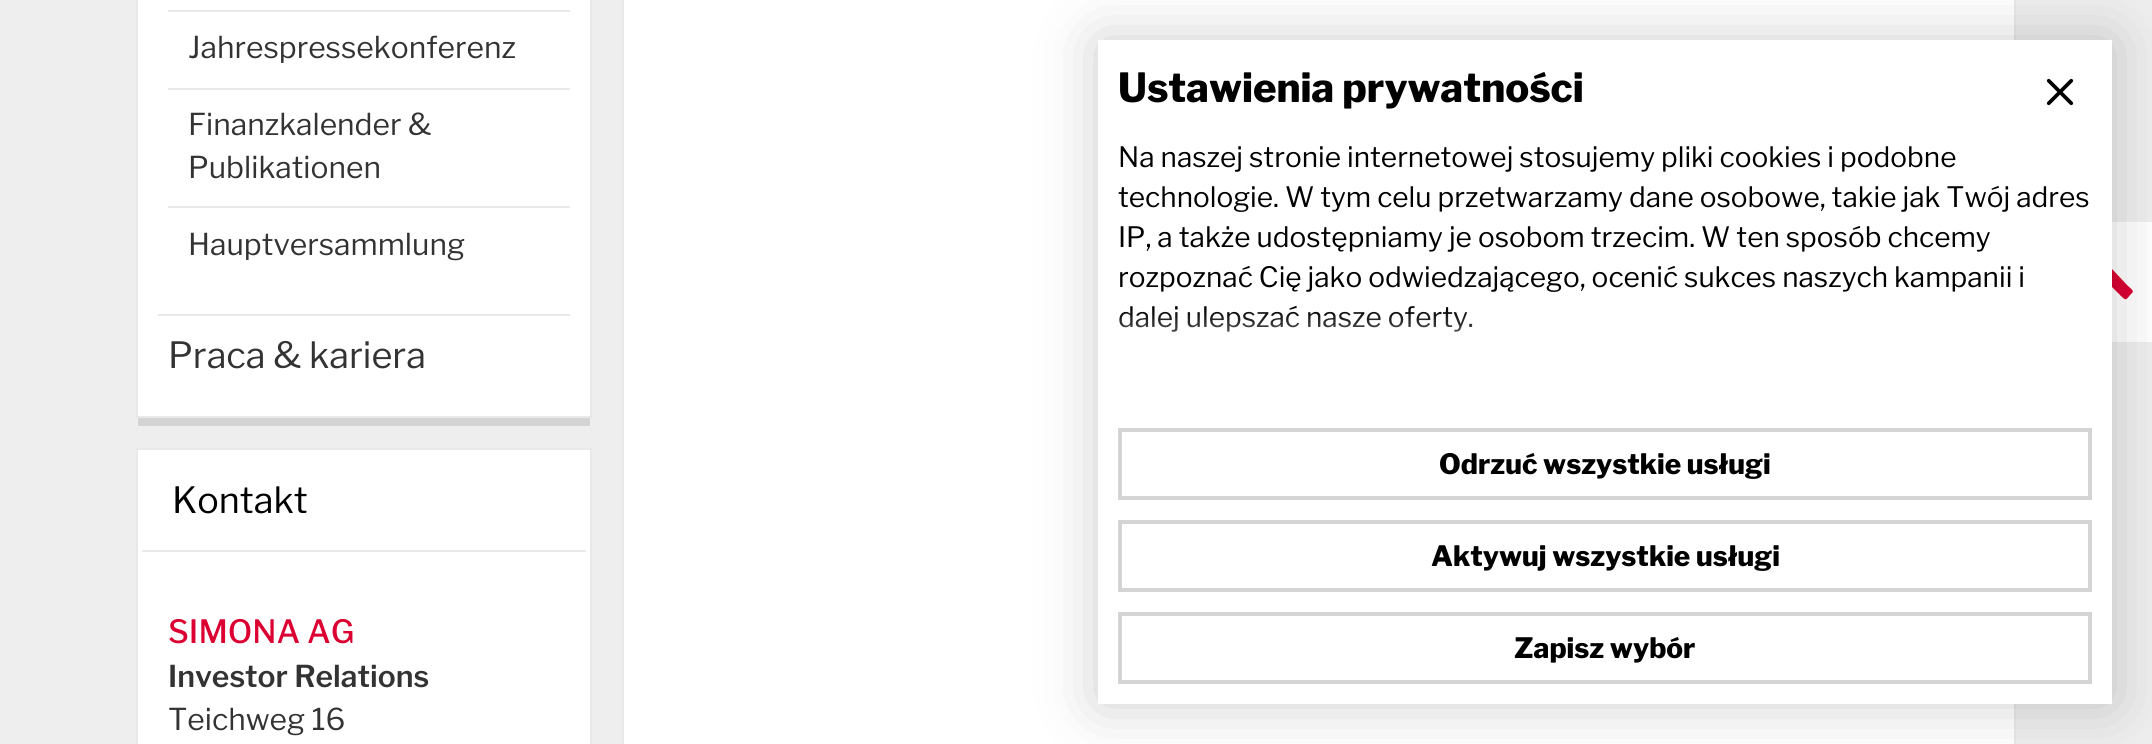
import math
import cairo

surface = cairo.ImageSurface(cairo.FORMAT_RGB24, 2152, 744)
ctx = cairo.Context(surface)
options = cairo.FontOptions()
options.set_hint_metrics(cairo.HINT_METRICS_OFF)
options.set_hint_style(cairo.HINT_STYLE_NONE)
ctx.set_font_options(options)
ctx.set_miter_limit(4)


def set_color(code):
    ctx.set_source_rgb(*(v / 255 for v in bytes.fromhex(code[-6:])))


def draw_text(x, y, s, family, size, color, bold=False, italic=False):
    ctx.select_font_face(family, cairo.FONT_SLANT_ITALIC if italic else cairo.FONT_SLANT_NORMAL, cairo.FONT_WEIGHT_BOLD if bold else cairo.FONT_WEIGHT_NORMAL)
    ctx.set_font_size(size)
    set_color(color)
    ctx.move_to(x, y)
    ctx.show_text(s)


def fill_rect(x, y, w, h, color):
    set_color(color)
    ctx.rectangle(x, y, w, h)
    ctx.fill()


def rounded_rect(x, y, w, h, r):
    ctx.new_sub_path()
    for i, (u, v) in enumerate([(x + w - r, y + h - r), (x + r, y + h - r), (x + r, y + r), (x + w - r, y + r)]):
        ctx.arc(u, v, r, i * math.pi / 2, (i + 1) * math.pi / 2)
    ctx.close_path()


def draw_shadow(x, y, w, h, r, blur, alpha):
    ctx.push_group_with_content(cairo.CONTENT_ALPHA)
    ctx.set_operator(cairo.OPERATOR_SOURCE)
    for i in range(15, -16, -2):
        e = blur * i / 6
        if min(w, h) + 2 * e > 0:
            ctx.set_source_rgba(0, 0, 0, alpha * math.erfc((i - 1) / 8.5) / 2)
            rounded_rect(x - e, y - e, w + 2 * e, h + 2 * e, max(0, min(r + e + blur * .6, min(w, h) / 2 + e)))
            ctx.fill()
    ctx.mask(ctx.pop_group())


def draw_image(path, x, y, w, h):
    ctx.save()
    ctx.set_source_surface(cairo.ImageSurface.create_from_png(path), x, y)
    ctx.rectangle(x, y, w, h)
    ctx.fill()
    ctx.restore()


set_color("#eeeeee")
ctx.paint()
fill_rect(138, 418, 452, 8, "#d4d4d4")
set_color("#ffffff")
ctx.rectangle(137, -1, 454, 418)
ctx.fill_preserve()
set_color("#e8e8e8")
ctx.stroke()
fill_rect(158, 314, 412, 2, "#e8e8e8")
fill_rect(168, 10, 402, 2, "#e8e8e8")
fill_rect(168, 88, 402, 2, "#e8e8e8")
draw_text(188, 58, "Jahrespressekonferenz", "Libre Franklin", 30, "#333333")
fill_rect(168, 206, 402, 2, "#e8e8e8")
draw_text(188, 135, "Finanzkalender &", "Libre Franklin", 30, "#333333")
draw_text(188, 178, "Publikationen", "Libre Franklin", 30, "#333333")
draw_text(188, 255, "Hauptversammlung", "Libre Franklin", 30, "#333333")
draw_text(168, 368, "Praca & kariera", "Libre Franklin", 36, "#333333")
set_color("#ffffff")
ctx.rectangle(137, 449, 454, 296)
ctx.fill_preserve()
set_color("#e8e8e8")
ctx.stroke()
fill_rect(142, 550, 444, 2, "#e8e8e8")
draw_text(172, 513, "Kontakt", "Libre Franklin", 36, "#000000")
draw_text(168, 643, "SIMONA AG", "Libre Franklin Medium", 32, "#db0031")
draw_text(168, 687, "Investor Relations", "Libre Franklin SemiBold", 30, "#333333")
draw_text(168, 730, "Teichweg 16", "Libre Franklin", 30, "#333333")
set_color("#ffffff")
ctx.rectangle(623, -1, 1392, 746)
ctx.fill_preserve()
set_color("#e8e8e8")
ctx.stroke()
fill_rect(2112, 222, 40, 120, "#ffffff")
set_color("#db0031")
ctx.new_path()
ctx.move_to(2132, 293)
ctx.curve_to(2126, 299, 2127, 302, 2121, 296)
ctx.line_to(2106, 281)
ctx.line_to(2091, 296)
ctx.curve_to(2086, 301, 2086, 300, 2081, 294)
ctx.curve_to(2077, 291, 2080, 289, 2084, 286)
ctx.line_to(2100, 269)
ctx.curve_to(2107, 263, 2105, 263, 2112, 269)
ctx.line_to(2128, 286)
ctx.curve_to(2129, 287, 2135, 291, 2132, 293)
ctx.close_path()
ctx.fill()
set_color("#000000")
draw_shadow(1098, 40, 1014, 664, 0, 30, 0.2)
fill_rect(1098, 40, 1014, 664, "#ffffff")
draw_text(1118, 102, "Ustawienia prywatności", "Libre Franklin ExtraBold", 40, "#000000")
draw_text(1118, 167, "Na naszej stronie internetowej stosujemy pliki cookies i podobne", "Libre Franklin", 28, "#000000")
draw_text(1118, 207, "technologie. W tym celu przetwarzamy dane osobowe, takie jak Twój adres", "Libre Franklin", 28, "#000000")
draw_text(1118, 247, "IP, a także udostępniamy je osobom trzecim. W ten sposób chcemy", "Libre Franklin", 28, "#000000")
draw_text(1118, 287, "rozpoznać Cię jako odwiedzającego, ocenić sukces naszych kampanii i", "Libre Franklin", 28, "#000000")
draw_text(1118, 327, "dalej ulepszać nasze oferty.", "Libre Franklin", 28, "#000000")
gradient = cairo.LinearGradient(1594, 308, 1594, 388)
gradient.add_color_stop_rgba(0, 1, 1, 1, 0)
gradient.add_color_stop_rgba(1, 1, 1, 1, 1)
ctx.set_source(gradient)
ctx.rectangle(1119, 310, 354, 22)
ctx.fill()
ctx.rectangle(1120, 430, 970, 68)
set_color("#d4d4d4")
ctx.set_line_width(4)
ctx.stroke()
draw_text(1439, 474, "Odrzuć wszystkie usługi", "Libre Franklin ExtraBold", 28, "#000000")
ctx.rectangle(1120, 522, 970, 68)
set_color("#d4d4d4")
ctx.stroke()
draw_text(1431, 566, "Aktywuj wszystkie usługi", "Libre Franklin ExtraBold", 28, "#000000")
ctx.rectangle(1120, 614, 970, 68)
set_color("#d4d4d4")
ctx.stroke()
draw_text(1514, 658, "Zapisz wybór", "Libre Franklin ExtraBold", 28, "#000000")
draw_image("assets/img1.png", 2046, 78, 28, 28)
surface.write_to_png("output.png")
